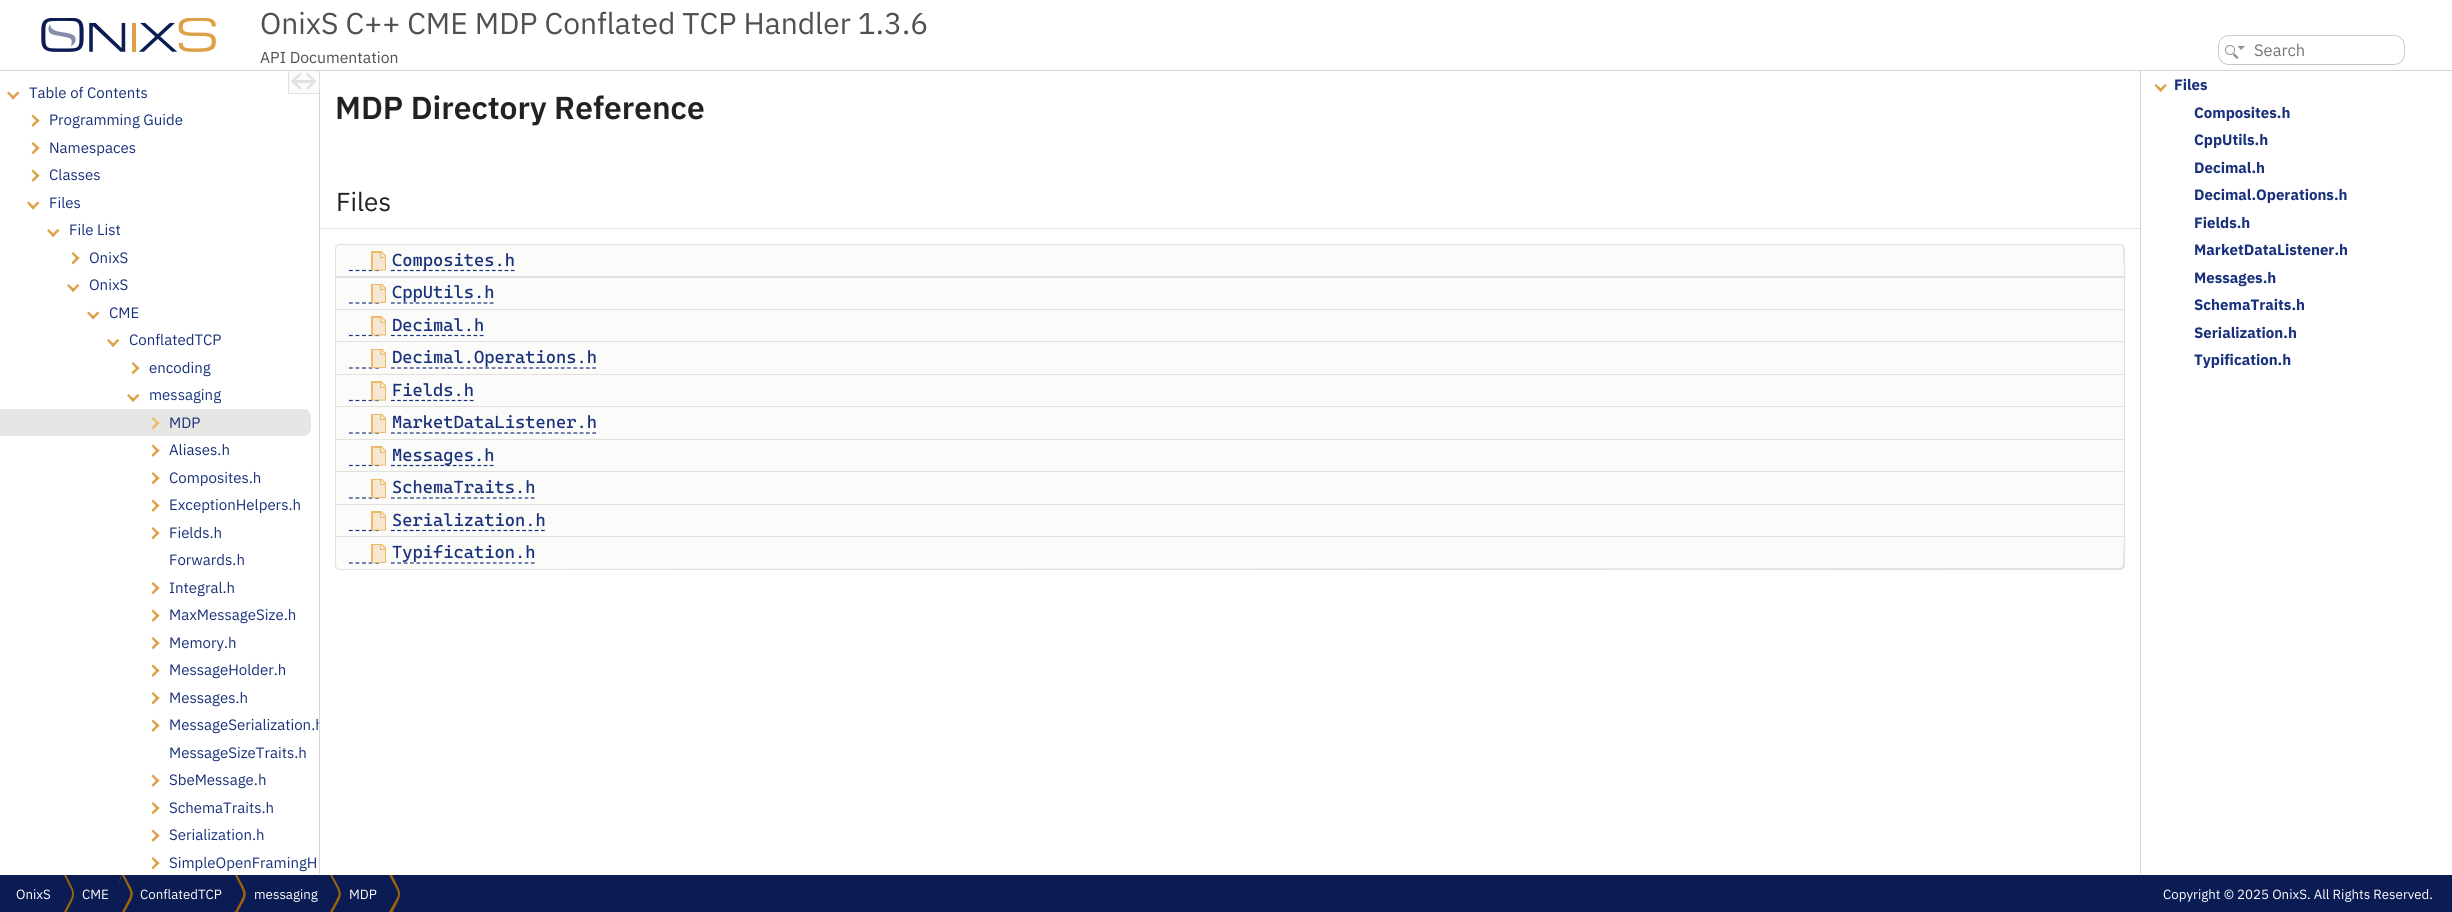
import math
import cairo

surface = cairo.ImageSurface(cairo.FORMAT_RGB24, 2452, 912)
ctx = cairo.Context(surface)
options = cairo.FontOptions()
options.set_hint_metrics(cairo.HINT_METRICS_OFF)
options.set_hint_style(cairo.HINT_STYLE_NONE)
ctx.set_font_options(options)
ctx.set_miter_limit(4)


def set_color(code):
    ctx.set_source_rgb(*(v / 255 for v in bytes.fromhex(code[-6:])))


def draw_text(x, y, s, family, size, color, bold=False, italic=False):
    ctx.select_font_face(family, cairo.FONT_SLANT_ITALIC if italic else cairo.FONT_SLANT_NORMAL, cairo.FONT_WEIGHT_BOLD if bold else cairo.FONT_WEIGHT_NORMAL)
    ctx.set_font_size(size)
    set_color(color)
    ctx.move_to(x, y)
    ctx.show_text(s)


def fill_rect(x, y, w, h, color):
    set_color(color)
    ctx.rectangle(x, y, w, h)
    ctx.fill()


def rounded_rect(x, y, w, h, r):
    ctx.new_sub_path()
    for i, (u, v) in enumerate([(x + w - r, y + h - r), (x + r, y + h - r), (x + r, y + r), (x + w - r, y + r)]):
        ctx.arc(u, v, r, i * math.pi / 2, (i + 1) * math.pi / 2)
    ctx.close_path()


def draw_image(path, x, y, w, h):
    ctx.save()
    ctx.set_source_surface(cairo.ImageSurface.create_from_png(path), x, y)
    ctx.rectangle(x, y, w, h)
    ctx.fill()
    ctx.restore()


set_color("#ffffff")
ctx.paint()
fill_rect(288, 71, 31, 23, "#fcfcfc")
fill_rect(0, 70, 2452, 1, "#d6d5d3")
draw_image("assets/img1.png", 41, 18, 175, 34)
draw_text(260, 34, "OnixS C++ CME MDP Conflated TCP Handler 1.3.6", "IBM Plex Sans", 30, "#505050")
draw_text(260, 63, "API Documentation", "IBM Plex Sans", 15.75, "#505050")
rounded_rect(2218.5, 35.5, 186, 29, 10.5)
set_color("#cdcbc9")
ctx.set_line_width(1)
ctx.stroke()
ctx.arc(2230, 50, 4.5, 0, 2 * math.pi)
set_color("#909090")
ctx.stroke()
ctx.new_path()
ctx.move_to(2237.5, 46)
ctx.line_to(2245, 46)
ctx.line_to(2241, 50)
ctx.close_path()
ctx.move_to(2233.5, 54)
ctx.curve_to(2234.5, 53, 2236, 54.5, 2236.5, 55.5)
ctx.curve_to(2237.5, 56, 2239, 57.5, 2238, 58.5)
ctx.curve_to(2237, 59.5, 2235.5, 58, 2235, 57)
ctx.curve_to(2234, 56.5, 2232.5, 55.5, 2233.5, 54)
ctx.close_path()
ctx.fill()
draw_text(2254, 56, "Search", "IBM Plex Sans", 16.5, "#757575")
fill_rect(319, 94, 1, 780, "#d6d5d3")
fill_rect(319, 71, 1, 23, "#f0f0ee")
ctx.save()
ctx.rectangle(0, 71, 328, 803)
ctx.clip()
ctx.rectangle(288.5, 70.5, 31, 23)
ctx.set_source_rgba(0.839, 0.835, 0.827, 0.7)
ctx.stroke()
ctx.restore()
set_color("#e2e2e0")
ctx.new_path()
ctx.move_to(291, 81)
ctx.line_to(300, 72.5)
ctx.line_to(302, 74)
ctx.line_to(293, 83)
ctx.close_path()
ctx.fill()
ctx.new_path()
ctx.move_to(291, 81)
ctx.line_to(293, 79.5)
ctx.line_to(302, 88.5)
ctx.line_to(300, 90)
ctx.close_path()
ctx.move_to(305.5, 74)
ctx.line_to(307.5, 72.5)
ctx.line_to(316.5, 81.5)
ctx.line_to(314.5, 83)
ctx.close_path()
ctx.fill()
ctx.new_path()
ctx.move_to(305.5, 88.5)
ctx.line_to(314.5, 79.5)
ctx.line_to(316.5, 81.5)
ctx.line_to(307.5, 90)
ctx.close_path()
ctx.fill()
fill_rect(294, 80, 20, 3, "#e2e2e0")
set_color("#dea147")
ctx.new_path()
ctx.move_to(17.5, 91.5)
ctx.line_to(19.5, 93)
ctx.line_to(13, 99.5)
ctx.line_to(11.5, 97.5)
ctx.close_path()
ctx.fill()
draw_text(29, 98, "Table of Contents", "IBM Plex Sans", 15, "#19317b")
set_color("#dea147")
ctx.new_path()
ctx.move_to(8.5, 91.5)
ctx.line_to(15, 97.5)
ctx.line_to(13, 99.5)
ctx.line_to(7, 93)
ctx.close_path()
ctx.move_to(31.5, 116)
ctx.line_to(33, 114.5)
ctx.line_to(39.5, 120.5)
ctx.line_to(37.5, 122.5)
ctx.close_path()
ctx.fill()
ctx.new_path()
ctx.move_to(31.5, 125)
ctx.line_to(37.5, 119)
ctx.line_to(39.5, 120.5)
ctx.line_to(33, 127)
ctx.close_path()
ctx.move_to(31.5, 143.5)
ctx.line_to(33, 142)
ctx.line_to(39.5, 148)
ctx.line_to(37.5, 150)
ctx.close_path()
ctx.fill()
draw_text(49, 125, "Programming Guide", "IBM Plex Sans", 15, "#19317b")
set_color("#dea147")
ctx.new_path()
ctx.move_to(31.5, 152.5)
ctx.line_to(37.5, 146.5)
ctx.line_to(39.5, 148)
ctx.line_to(33, 154.5)
ctx.close_path()
ctx.move_to(31.5, 171)
ctx.line_to(33, 169.5)
ctx.line_to(39.5, 175.5)
ctx.line_to(37.5, 177.5)
ctx.close_path()
ctx.fill()
draw_text(49, 153, "Namespaces", "IBM Plex Sans", 15, "#19317b")
set_color("#dea147")
ctx.new_path()
ctx.move_to(31.5, 180)
ctx.line_to(37.5, 174)
ctx.line_to(39.5, 175.5)
ctx.line_to(33, 182)
ctx.close_path()
ctx.move_to(37.5, 201.5)
ctx.line_to(39.5, 203)
ctx.line_to(33, 209.5)
ctx.line_to(31.5, 207.5)
ctx.close_path()
ctx.fill()
draw_text(49, 180, "Classes", "IBM Plex Sans", 15, "#19317b")
draw_text(49, 208, "Files", "IBM Plex Sans", 15, "#19317b")
set_color("#dea147")
ctx.new_path()
ctx.move_to(28.5, 201.5)
ctx.line_to(35, 207.5)
ctx.line_to(33, 209.5)
ctx.line_to(27, 203)
ctx.close_path()
ctx.move_to(57.5, 229)
ctx.line_to(59.5, 230.5)
ctx.line_to(53, 237)
ctx.line_to(51.5, 235)
ctx.close_path()
ctx.fill()
draw_text(69, 235, "File List", "IBM Plex Sans", 15, "#19317b")
set_color("#dea147")
ctx.new_path()
ctx.move_to(48.5, 229)
ctx.line_to(55, 235)
ctx.line_to(53, 237)
ctx.line_to(47, 230.5)
ctx.close_path()
ctx.move_to(71.5, 253.5)
ctx.line_to(73, 252)
ctx.line_to(79.5, 258)
ctx.line_to(77.5, 260)
ctx.close_path()
ctx.fill()
ctx.new_path()
ctx.move_to(71.5, 262.5)
ctx.line_to(77.5, 256.5)
ctx.line_to(79.5, 258)
ctx.line_to(73, 264.5)
ctx.close_path()
ctx.move_to(77.5, 284)
ctx.line_to(79.5, 285.5)
ctx.line_to(73, 292)
ctx.line_to(71.5, 290)
ctx.close_path()
ctx.fill()
draw_text(89, 263, "OnixS", "IBM Plex Sans", 15, "#19317b")
draw_text(89, 290, "OnixS", "IBM Plex Sans", 15, "#19317b")
set_color("#dea147")
ctx.new_path()
ctx.move_to(68.5, 284)
ctx.line_to(75, 290)
ctx.line_to(73, 292)
ctx.line_to(67, 285.5)
ctx.close_path()
ctx.move_to(97.5, 311.5)
ctx.line_to(99.5, 313)
ctx.line_to(93, 319.5)
ctx.line_to(91.5, 317.5)
ctx.close_path()
ctx.fill()
draw_text(109, 318, "CME", "IBM Plex Sans", 15, "#19317b")
set_color("#dea147")
ctx.new_path()
ctx.move_to(88.5, 311.5)
ctx.line_to(95, 317.5)
ctx.line_to(93, 319.5)
ctx.line_to(87, 313)
ctx.close_path()
ctx.move_to(117.5, 339)
ctx.line_to(119.5, 340.5)
ctx.line_to(113, 347)
ctx.line_to(111.5, 345)
ctx.close_path()
ctx.fill()
draw_text(129, 345, "ConflatedTCP", "IBM Plex Sans", 15, "#19317b")
set_color("#dea147")
ctx.new_path()
ctx.move_to(108.5, 339)
ctx.line_to(115, 345)
ctx.line_to(113, 347)
ctx.line_to(107, 340.5)
ctx.close_path()
ctx.move_to(131.5, 363.5)
ctx.line_to(133, 362)
ctx.line_to(139.5, 368)
ctx.line_to(137.5, 370)
ctx.close_path()
ctx.fill()
ctx.new_path()
ctx.move_to(131.5, 372.5)
ctx.line_to(137.5, 366.5)
ctx.line_to(139.5, 368)
ctx.line_to(133, 374.5)
ctx.close_path()
ctx.move_to(137.5, 394)
ctx.line_to(139.5, 395.5)
ctx.line_to(133, 402)
ctx.line_to(131.5, 400)
ctx.close_path()
ctx.fill()
draw_text(149, 373, "encoding", "IBM Plex Sans", 15, "#19317b")
set_color("#dea147")
ctx.new_path()
ctx.move_to(128.5, 394)
ctx.line_to(135, 400)
ctx.line_to(133, 402)
ctx.line_to(127, 395.5)
ctx.close_path()
ctx.fill()
draw_text(149, 400, "messaging", "IBM Plex Sans", 15, "#19317b")
set_color("#e6e6e4")
ctx.new_path()
ctx.move_to(0, 409)
ctx.line_to(303, 409)
ctx.curve_to(307.5, 409, 311, 412.5, 311, 417)
ctx.line_to(311, 428)
ctx.curve_to(311, 432.5, 307.5, 436, 303, 436)
ctx.line_to(0, 436)
ctx.close_path()
ctx.fill()
set_color("#ecbc6c")
ctx.new_path()
ctx.move_to(151.5, 418.5)
ctx.line_to(153, 417)
ctx.line_to(159.5, 423)
ctx.line_to(157.5, 425)
ctx.close_path()
ctx.fill()
ctx.new_path()
ctx.move_to(151.5, 427.5)
ctx.line_to(157.5, 421.5)
ctx.line_to(159.5, 423)
ctx.line_to(153, 429.5)
ctx.close_path()
ctx.fill()
draw_text(169, 428, "MDP", "IBM Plex Sans", 15, "#19317b")
set_color("#dea147")
ctx.new_path()
ctx.move_to(151.5, 446)
ctx.line_to(153, 444.5)
ctx.line_to(159.5, 450.5)
ctx.line_to(157.5, 452.5)
ctx.close_path()
ctx.fill()
ctx.new_path()
ctx.move_to(151.5, 455)
ctx.line_to(157.5, 449)
ctx.line_to(159.5, 450.5)
ctx.line_to(153, 457)
ctx.close_path()
ctx.move_to(151.5, 473.5)
ctx.line_to(153, 472)
ctx.line_to(159.5, 478)
ctx.line_to(157.5, 480)
ctx.close_path()
ctx.fill()
draw_text(169, 455, "Aliases.h", "IBM Plex Sans", 15, "#19317b")
set_color("#dea147")
ctx.new_path()
ctx.move_to(151.5, 482.5)
ctx.line_to(157.5, 476.5)
ctx.line_to(159.5, 478)
ctx.line_to(153, 484.5)
ctx.close_path()
ctx.move_to(151.5, 501)
ctx.line_to(153, 499.5)
ctx.line_to(159.5, 505.5)
ctx.line_to(157.5, 507.5)
ctx.close_path()
ctx.fill()
draw_text(169, 483, "Composites.h", "IBM Plex Sans", 15, "#19317b")
set_color("#dea147")
ctx.new_path()
ctx.move_to(151.5, 510)
ctx.line_to(157.5, 504)
ctx.line_to(159.5, 505.5)
ctx.line_to(153, 512)
ctx.close_path()
ctx.move_to(151.5, 528.5)
ctx.line_to(153, 527)
ctx.line_to(159.5, 533)
ctx.line_to(157.5, 535)
ctx.close_path()
ctx.fill()
draw_text(169, 510, "ExceptionHelpers.h", "IBM Plex Sans", 15, "#19317b")
set_color("#dea147")
ctx.new_path()
ctx.move_to(151.5, 537.5)
ctx.line_to(157.5, 531.5)
ctx.line_to(159.5, 533)
ctx.line_to(153, 539.5)
ctx.close_path()
ctx.move_to(151.5, 583.5)
ctx.line_to(153, 582)
ctx.line_to(159.5, 588)
ctx.line_to(157.5, 590)
ctx.close_path()
ctx.fill()
draw_text(169, 538, "Fields.h", "IBM Plex Sans", 15, "#19317b")
draw_text(169, 565, "Forwards.h", "IBM Plex Sans", 15, "#19317b")
set_color("#dea147")
ctx.new_path()
ctx.move_to(151.5, 592.5)
ctx.line_to(157.5, 586.5)
ctx.line_to(159.5, 588)
ctx.line_to(153, 594.5)
ctx.close_path()
ctx.move_to(151.5, 611)
ctx.line_to(153, 609.5)
ctx.line_to(159.5, 615.5)
ctx.line_to(157.5, 617.5)
ctx.close_path()
ctx.fill()
draw_text(169, 593, "Integral.h", "IBM Plex Sans", 15, "#19317b")
set_color("#dea147")
ctx.new_path()
ctx.move_to(151.5, 620)
ctx.line_to(157.5, 614)
ctx.line_to(159.5, 615.5)
ctx.line_to(153, 622)
ctx.close_path()
ctx.move_to(151.5, 638.5)
ctx.line_to(153, 637)
ctx.line_to(159.5, 643)
ctx.line_to(157.5, 645)
ctx.close_path()
ctx.fill()
draw_text(169, 620, "MaxMessageSize.h", "IBM Plex Sans", 15, "#19317b")
set_color("#dea147")
ctx.new_path()
ctx.move_to(151.5, 647.5)
ctx.line_to(157.5, 641.5)
ctx.line_to(159.5, 643)
ctx.line_to(153, 649.5)
ctx.close_path()
ctx.move_to(151.5, 666)
ctx.line_to(153, 664.5)
ctx.line_to(159.5, 670.5)
ctx.line_to(157.5, 672.5)
ctx.close_path()
ctx.fill()
draw_text(169, 648, "Memory.h", "IBM Plex Sans", 15, "#19317b")
set_color("#dea147")
ctx.new_path()
ctx.move_to(151.5, 675)
ctx.line_to(157.5, 669)
ctx.line_to(159.5, 670.5)
ctx.line_to(153, 677)
ctx.close_path()
ctx.move_to(151.5, 693.5)
ctx.line_to(153, 692)
ctx.line_to(159.5, 698)
ctx.line_to(157.5, 700)
ctx.close_path()
ctx.fill()
draw_text(169, 675, "MessageHolder.h", "IBM Plex Sans", 15, "#19317b")
set_color("#dea147")
ctx.new_path()
ctx.move_to(151.5, 702.5)
ctx.line_to(157.5, 696.5)
ctx.line_to(159.5, 698)
ctx.line_to(153, 704.5)
ctx.close_path()
ctx.move_to(151.5, 721)
ctx.line_to(153, 719.5)
ctx.line_to(159.5, 725.5)
ctx.line_to(157.5, 727.5)
ctx.close_path()
ctx.fill()
draw_text(169, 703, "Messages.h", "IBM Plex Sans", 15, "#19317b")
set_color("#dea147")
ctx.new_path()
ctx.move_to(151.5, 730)
ctx.line_to(157.5, 724)
ctx.line_to(159.5, 725.5)
ctx.line_to(153, 732)
ctx.close_path()
ctx.move_to(151.5, 776)
ctx.line_to(153, 774.5)
ctx.line_to(159.5, 780.5)
ctx.line_to(157.5, 782.5)
ctx.close_path()
ctx.fill()
ctx.save()
ctx.rectangle(0, 71, 319, 803)
ctx.clip()
draw_text(169, 730, "MessageSerialization.h", "IBM Plex Sans", 15, "#19317b")
ctx.restore()
draw_text(169, 758, "MessageSizeTraits.h", "IBM Plex Sans", 15, "#19317b")
set_color("#dea147")
ctx.new_path()
ctx.move_to(151.5, 785)
ctx.line_to(157.5, 779)
ctx.line_to(159.5, 780.5)
ctx.line_to(153, 787)
ctx.close_path()
ctx.move_to(151.5, 803.5)
ctx.line_to(153, 802)
ctx.line_to(159.5, 808)
ctx.line_to(157.5, 810)
ctx.close_path()
ctx.fill()
draw_text(169, 785, "SbeMessage.h", "IBM Plex Sans", 15, "#19317b")
set_color("#dea147")
ctx.new_path()
ctx.move_to(151.5, 812.5)
ctx.line_to(157.5, 806.5)
ctx.line_to(159.5, 808)
ctx.line_to(153, 814.5)
ctx.close_path()
ctx.move_to(151.5, 831)
ctx.line_to(153, 829.5)
ctx.line_to(159.5, 835.5)
ctx.line_to(157.5, 837.5)
ctx.close_path()
ctx.fill()
draw_text(169, 813, "SchemaTraits.h", "IBM Plex Sans", 15, "#19317b")
set_color("#dea147")
ctx.new_path()
ctx.move_to(151.5, 840)
ctx.line_to(157.5, 834)
ctx.line_to(159.5, 835.5)
ctx.line_to(153, 842)
ctx.close_path()
ctx.move_to(151.5, 858.5)
ctx.line_to(153, 857)
ctx.line_to(159.5, 863)
ctx.line_to(157.5, 865)
ctx.close_path()
ctx.fill()
draw_text(169, 840, "Serialization.h", "IBM Plex Sans", 15, "#19317b")
set_color("#dea147")
ctx.new_path()
ctx.move_to(151.5, 867.5)
ctx.line_to(157.5, 861.5)
ctx.line_to(159.5, 863)
ctx.line_to(153, 869.5)
ctx.close_path()
ctx.fill()
draw_text(169, 868, "SimpleOpenFramingH", "IBM Plex Sans", 15, "#19317b")
draw_text(335, 119, "MDP Directory Reference", "IBM Plex Sans SemiBold", 31.75, "#222222")
set_color("#e5e4e3")
ctx.new_path()
ctx.move_to(320, 174)
ctx.line_to(320, 229)
ctx.line_to(2108, 229)
ctx.line_to(2108, 228)
ctx.line_to(336, 228)
ctx.line_to(336, 174)
ctx.close_path()
ctx.fill()
ctx.new_path()
ctx.move_to(353, 228)
ctx.line_to(353, 229)
ctx.line_to(2140, 229)
ctx.line_to(2140, 174)
ctx.line_to(2124, 174)
ctx.line_to(2124, 228)
ctx.close_path()
ctx.fill()
set_color("#ffffff")
ctx.new_path()
ctx.move_to(320, 173)
ctx.line_to(320, 228)
ctx.line_to(2108, 228)
ctx.line_to(336, 228)
ctx.line_to(336, 173)
ctx.close_path()
ctx.fill()
ctx.new_path()
ctx.move_to(353, 228)
ctx.line_to(2140, 228)
ctx.line_to(2140, 173)
ctx.line_to(2124, 173)
ctx.line_to(2124, 228)
ctx.close_path()
ctx.fill()
draw_text(336, 211, "Files", "IBM Plex Sans", 26, "#222222")
set_color("#fbfbfa")
ctx.new_path()
ctx.move_to(340, 244)
ctx.line_to(390, 244)
ctx.line_to(390, 278)
ctx.line_to(335, 278)
ctx.line_to(335, 249)
ctx.curve_to(335, 246, 337, 244, 340, 244)
ctx.close_path()
ctx.fill()
set_color("#e2e1df")
ctx.set_fill_rule(cairo.FILL_RULE_EVEN_ODD)
ctx.new_path()
ctx.move_to(340, 244)
ctx.line_to(390, 244)
ctx.line_to(390, 278)
ctx.line_to(335, 278)
ctx.line_to(335, 249)
ctx.curve_to(335, 246, 337, 244, 340, 244)
ctx.close_path()
ctx.move_to(340, 245)
ctx.line_to(390, 245)
ctx.line_to(390, 276)
ctx.line_to(336, 276)
ctx.line_to(336, 249)
ctx.curve_to(336, 247, 338, 245, 340, 245)
ctx.close_path()
ctx.fill()
ctx.new_path()
ctx.move_to(349, 270.5)
ctx.line_to(379, 270.5)
set_color("#19317b")
ctx.set_line_width(1.2)
ctx.set_dash([3.75, 2.81])
ctx.stroke()
set_color("#ecbc6c")
ctx.set_fill_rule(cairo.FILL_RULE_WINDING)
ctx.new_path()
ctx.move_to(386, 270.5)
ctx.line_to(371, 270.5)
ctx.line_to(371, 251)
ctx.line_to(381.5, 251)
ctx.line_to(386, 255.5)
ctx.close_path()
ctx.fill()
set_color("#f7e7d1")
ctx.new_path()
ctx.move_to(373, 253)
ctx.line_to(373, 269.5)
ctx.line_to(385, 269.5)
ctx.line_to(385, 256)
ctx.line_to(382, 253)
ctx.close_path()
ctx.fill()
fill_rect(336, 278, 1788, 31, "#fbfbfa")
ctx.new_path()
ctx.move_to(349, 303)
ctx.line_to(379, 303)
set_color("#19317b")
ctx.stroke()
set_color("#ecbc6c")
ctx.new_path()
ctx.move_to(380, 251)
ctx.line_to(380, 258)
ctx.line_to(386, 258)
ctx.line_to(386, 255.5)
ctx.line_to(385, 254.5)
ctx.line_to(385, 257)
ctx.line_to(381, 257)
ctx.line_to(381, 252)
ctx.line_to(382.5, 252)
ctx.line_to(381.5, 251)
ctx.close_path()
ctx.move_to(386, 303)
ctx.line_to(371, 303)
ctx.line_to(371, 284)
ctx.line_to(382, 284)
ctx.line_to(386, 288)
ctx.close_path()
ctx.fill()
set_color("#fbfbfa")
ctx.new_path()
ctx.move_to(390, 244)
ctx.line_to(2120, 244)
ctx.curve_to(2123, 244, 2125, 246, 2125, 249)
ctx.line_to(2125, 278)
ctx.line_to(390, 278)
ctx.close_path()
ctx.fill()
set_color("#e2e1df")
ctx.set_fill_rule(cairo.FILL_RULE_EVEN_ODD)
ctx.new_path()
ctx.move_to(390, 244)
ctx.line_to(2120, 244)
ctx.curve_to(2123, 244, 2125, 246, 2125, 249)
ctx.line_to(2125, 278)
ctx.line_to(390, 278)
ctx.close_path()
ctx.move_to(390, 245)
ctx.line_to(2121, 245)
ctx.line_to(2123, 247)
ctx.line_to(2124, 276)
ctx.line_to(390, 276)
ctx.close_path()
ctx.fill()
ctx.new_path()
ctx.move_to(391, 270.5)
ctx.line_to(515, 270.5)
set_color("#19317b")
ctx.set_dash([3.75, 2.56])
ctx.stroke()
draw_text(392, 266, "Composites.h", "Cascadia Mono", 17.5, "#19317b")
fill_rect(335, 309, 55, 1, "#e2e1df")
fill_rect(335, 278, 1, 32, "#e2e1df")
set_color("#f7e7d1")
ctx.set_fill_rule(cairo.FILL_RULE_WINDING)
ctx.new_path()
ctx.move_to(373, 285)
ctx.line_to(373, 302)
ctx.line_to(385, 302)
ctx.line_to(385, 289)
ctx.line_to(381.5, 285)
ctx.close_path()
ctx.fill()
fill_rect(336, 310, 1788, 33, "#fbfbfa")
ctx.new_path()
ctx.move_to(349, 335.5)
ctx.line_to(379, 335.5)
set_color("#19317b")
ctx.set_dash([3.75, 2.81])
ctx.stroke()
set_color("#ecbc6c")
ctx.new_path()
ctx.move_to(380, 284)
ctx.line_to(380, 290)
ctx.line_to(386, 290)
ctx.line_to(386, 288)
ctx.line_to(385, 287)
ctx.line_to(385, 289)
ctx.line_to(381, 289)
ctx.line_to(381, 285)
ctx.line_to(383, 285)
ctx.line_to(382, 284)
ctx.close_path()
ctx.move_to(386, 335.5)
ctx.line_to(371, 335.5)
ctx.line_to(371, 316)
ctx.line_to(381.5, 316)
ctx.line_to(386, 320.5)
ctx.close_path()
ctx.fill()
fill_rect(2124, 278, 1, 260, "#e2e1df")
fill_rect(390, 309, 1735, 1, "#e2e1df")
draw_text(392, 298, "CppUtils.h", "Cascadia Mono", 17.5, "#19317b")
ctx.new_path()
ctx.move_to(391, 303)
ctx.line_to(494, 303)
ctx.set_dash([3.75, 2.42])
ctx.stroke()
fill_rect(335, 341, 1790, 1, "#e2e1df")
fill_rect(335, 310, 1, 33, "#e2e1df")
set_color("#f7e7d1")
ctx.new_path()
ctx.move_to(373, 318)
ctx.line_to(373, 334.5)
ctx.line_to(385, 334.5)
ctx.line_to(385, 321)
ctx.line_to(382, 318)
ctx.close_path()
ctx.fill()
fill_rect(336, 343, 1788, 31, "#fbfbfa")
ctx.new_path()
ctx.move_to(349, 368)
ctx.line_to(379, 368)
set_color("#19317b")
ctx.set_dash([3.75, 2.81])
ctx.stroke()
set_color("#ecbc6c")
ctx.new_path()
ctx.move_to(380, 316)
ctx.line_to(380, 323)
ctx.line_to(386, 323)
ctx.line_to(386, 320.5)
ctx.line_to(385, 319.5)
ctx.line_to(385, 322)
ctx.line_to(381, 322)
ctx.line_to(381, 317)
ctx.line_to(382.5, 317)
ctx.line_to(381.5, 316)
ctx.close_path()
ctx.move_to(386, 368)
ctx.line_to(371, 368)
ctx.line_to(371, 349)
ctx.line_to(382, 349)
ctx.line_to(386, 353)
ctx.close_path()
ctx.fill()
draw_text(392, 331, "Decimal.h", "Cascadia Mono", 17.5, "#19317b")
ctx.new_path()
ctx.move_to(391, 335.5)
ctx.line_to(484, 335.5)
ctx.set_dash([3.75, 2.59])
ctx.stroke()
fill_rect(335, 374, 1790, 1, "#e2e1df")
fill_rect(335, 343, 1, 32, "#e2e1df")
set_color("#f7e7d1")
ctx.new_path()
ctx.move_to(373, 350)
ctx.line_to(373, 367)
ctx.line_to(385, 367)
ctx.line_to(385, 354)
ctx.line_to(381.5, 350)
ctx.close_path()
ctx.fill()
fill_rect(336, 375, 1788, 33, "#fbfbfa")
ctx.new_path()
ctx.move_to(349, 400.5)
ctx.line_to(379, 400.5)
set_color("#19317b")
ctx.set_dash([3.75, 2.81])
ctx.stroke()
set_color("#ecbc6c")
ctx.new_path()
ctx.move_to(380, 349)
ctx.line_to(380, 355)
ctx.line_to(386, 355)
ctx.line_to(386, 353)
ctx.line_to(385, 352)
ctx.line_to(385, 354)
ctx.line_to(381, 354)
ctx.line_to(381, 350)
ctx.line_to(383, 350)
ctx.line_to(382, 349)
ctx.close_path()
ctx.move_to(386, 400.5)
ctx.line_to(371, 400.5)
ctx.line_to(371, 381)
ctx.line_to(381.5, 381)
ctx.line_to(386, 385.5)
ctx.close_path()
ctx.fill()
draw_text(392, 363, "Decimal.Operations.h", "Cascadia Mono", 17.5, "#19317b")
ctx.new_path()
ctx.move_to(391, 368)
ctx.line_to(596, 368)
ctx.set_dash([3.75, 2.54])
ctx.stroke()
fill_rect(335, 406, 1790, 1, "#e2e1df")
fill_rect(335, 375, 1, 33, "#e2e1df")
set_color("#f7e7d1")
ctx.new_path()
ctx.move_to(373, 383)
ctx.line_to(373, 399.5)
ctx.line_to(385, 399.5)
ctx.line_to(385, 386)
ctx.line_to(382, 383)
ctx.close_path()
ctx.fill()
fill_rect(336, 408, 1788, 31, "#fbfbfa")
ctx.new_path()
ctx.move_to(349, 433)
ctx.line_to(379, 433)
set_color("#19317b")
ctx.set_dash([3.75, 2.81])
ctx.stroke()
set_color("#ecbc6c")
ctx.new_path()
ctx.move_to(380, 381)
ctx.line_to(380, 388)
ctx.line_to(386, 388)
ctx.line_to(386, 385.5)
ctx.line_to(385, 384.5)
ctx.line_to(385, 387)
ctx.line_to(381, 387)
ctx.line_to(381, 382)
ctx.line_to(382.5, 382)
ctx.line_to(381.5, 381)
ctx.close_path()
ctx.move_to(386, 433)
ctx.line_to(371, 433)
ctx.line_to(371, 414)
ctx.line_to(382, 414)
ctx.line_to(386, 418)
ctx.close_path()
ctx.fill()
draw_text(392, 396, "Fields.h", "Cascadia Mono", 17.5, "#19317b")
ctx.new_path()
ctx.move_to(391, 400.5)
ctx.line_to(474, 400.5)
ctx.set_dash([3.75, 2.31])
ctx.stroke()
fill_rect(335, 439, 1790, 1, "#e2e1df")
fill_rect(335, 408, 1, 32, "#e2e1df")
set_color("#f7e7d1")
ctx.new_path()
ctx.move_to(373, 415)
ctx.line_to(373, 432)
ctx.line_to(385, 432)
ctx.line_to(385, 419)
ctx.line_to(381.5, 415)
ctx.close_path()
ctx.fill()
fill_rect(336, 440, 1788, 33, "#fbfbfa")
ctx.new_path()
ctx.move_to(349, 465.5)
ctx.line_to(379, 465.5)
set_color("#19317b")
ctx.set_dash([3.75, 2.81])
ctx.stroke()
set_color("#ecbc6c")
ctx.new_path()
ctx.move_to(380, 414)
ctx.line_to(380, 420)
ctx.line_to(386, 420)
ctx.line_to(386, 418)
ctx.line_to(385, 417)
ctx.line_to(385, 419)
ctx.line_to(381, 419)
ctx.line_to(381, 415)
ctx.line_to(383, 415)
ctx.line_to(382, 414)
ctx.close_path()
ctx.move_to(386, 465.5)
ctx.line_to(371, 465.5)
ctx.line_to(371, 446)
ctx.line_to(381.5, 446)
ctx.line_to(386, 450.5)
ctx.close_path()
ctx.fill()
draw_text(392, 428, "MarketDataListener.h", "Cascadia Mono", 17.5, "#19317b")
ctx.new_path()
ctx.move_to(391, 433)
ctx.line_to(596, 433)
ctx.set_dash([3.75, 2.54])
ctx.stroke()
fill_rect(335, 471, 1790, 1, "#e2e1df")
fill_rect(335, 440, 1, 33, "#e2e1df")
set_color("#f7e7d1")
ctx.new_path()
ctx.move_to(373, 448)
ctx.line_to(373, 464.5)
ctx.line_to(385, 464.5)
ctx.line_to(385, 451)
ctx.line_to(382, 448)
ctx.close_path()
ctx.fill()
fill_rect(336, 473, 1788, 31, "#fbfbfa")
ctx.new_path()
ctx.move_to(349, 498)
ctx.line_to(379, 498)
set_color("#19317b")
ctx.set_dash([3.75, 2.81])
ctx.stroke()
set_color("#ecbc6c")
ctx.new_path()
ctx.move_to(380, 446)
ctx.line_to(380, 453)
ctx.line_to(386, 453)
ctx.line_to(386, 450.5)
ctx.line_to(385, 449.5)
ctx.line_to(385, 452)
ctx.line_to(381, 452)
ctx.line_to(381, 447)
ctx.line_to(382.5, 447)
ctx.line_to(381.5, 446)
ctx.close_path()
ctx.move_to(386, 498)
ctx.line_to(371, 498)
ctx.line_to(371, 479)
ctx.line_to(382, 479)
ctx.line_to(386, 483)
ctx.close_path()
ctx.fill()
ctx.new_path()
ctx.move_to(391, 465.5)
ctx.line_to(494, 465.5)
set_color("#19317b")
ctx.set_dash([3.75, 2.42])
ctx.stroke()
draw_text(392, 461, "Messages.h", "Cascadia Mono", 17.5, "#19317b")
fill_rect(335, 504, 1790, 1, "#e2e1df")
fill_rect(335, 473, 1, 32, "#e2e1df")
set_color("#f7e7d1")
ctx.new_path()
ctx.move_to(373, 480)
ctx.line_to(373, 497)
ctx.line_to(385, 497)
ctx.line_to(385, 484)
ctx.line_to(381.5, 480)
ctx.close_path()
ctx.fill()
fill_rect(336, 505, 1788, 33, "#fbfbfa")
ctx.new_path()
ctx.move_to(349, 530.5)
ctx.line_to(379, 530.5)
set_color("#19317b")
ctx.set_dash([3.75, 2.81])
ctx.stroke()
set_color("#ecbc6c")
ctx.new_path()
ctx.move_to(380, 479)
ctx.line_to(380, 485)
ctx.line_to(386, 485)
ctx.line_to(386, 483)
ctx.line_to(385, 482)
ctx.line_to(385, 484)
ctx.line_to(381, 484)
ctx.line_to(381, 480)
ctx.line_to(383, 480)
ctx.line_to(382, 479)
ctx.close_path()
ctx.move_to(386, 530.5)
ctx.line_to(371, 530.5)
ctx.line_to(371, 511)
ctx.line_to(381.5, 511)
ctx.line_to(386, 515.5)
ctx.close_path()
ctx.fill()
draw_text(392, 493, "SchemaTraits.h", "Cascadia Mono", 17.5, "#19317b")
ctx.new_path()
ctx.move_to(391, 498)
ctx.line_to(535, 498)
ctx.set_dash([3.75, 2.61])
ctx.stroke()
fill_rect(335, 536, 1790, 1, "#e2e1df")
fill_rect(335, 505, 1, 33, "#e2e1df")
set_color("#f7e7d1")
ctx.new_path()
ctx.move_to(373, 513)
ctx.line_to(373, 529.5)
ctx.line_to(385, 529.5)
ctx.line_to(385, 516)
ctx.line_to(382, 513)
ctx.close_path()
ctx.fill()
set_color("#fbfbfa")
ctx.new_path()
ctx.move_to(335, 538)
ctx.line_to(390, 538)
ctx.line_to(390, 570)
ctx.line_to(340, 570)
ctx.curve_to(337, 570, 335, 568, 335, 565)
ctx.close_path()
ctx.fill()
set_color("#e2e1df")
ctx.set_fill_rule(cairo.FILL_RULE_EVEN_ODD)
ctx.new_path()
ctx.move_to(335, 538)
ctx.line_to(390, 538)
ctx.line_to(390, 570)
ctx.line_to(340, 570)
ctx.curve_to(337, 570, 335, 568, 335, 565)
ctx.close_path()
ctx.move_to(336, 538)
ctx.line_to(390, 538)
ctx.line_to(390, 569)
ctx.line_to(340, 569)
ctx.curve_to(338, 569, 336, 567, 336, 565)
ctx.close_path()
ctx.fill()
ctx.new_path()
ctx.move_to(349, 563)
ctx.line_to(379, 563)
set_color("#19317b")
ctx.set_dash([3.75, 2.81])
ctx.stroke()
set_color("#ecbc6c")
ctx.set_fill_rule(cairo.FILL_RULE_WINDING)
ctx.new_path()
ctx.move_to(380, 511)
ctx.line_to(380, 518)
ctx.line_to(386, 518)
ctx.line_to(386, 515.5)
ctx.line_to(385, 514.5)
ctx.line_to(385, 517)
ctx.line_to(381, 517)
ctx.line_to(381, 512)
ctx.line_to(382.5, 512)
ctx.line_to(381.5, 511)
ctx.close_path()
ctx.move_to(386, 563)
ctx.line_to(371, 563)
ctx.line_to(371, 544)
ctx.line_to(382, 544)
ctx.line_to(386, 548)
ctx.close_path()
ctx.fill()
draw_text(392, 526, "Serialization.h", "Cascadia Mono", 17.5, "#19317b")
ctx.new_path()
ctx.move_to(391, 530.5)
ctx.line_to(545, 530.5)
ctx.set_dash([3.75, 2.5])
ctx.stroke()
set_color("#f7e7d1")
ctx.new_path()
ctx.move_to(373, 545)
ctx.line_to(373, 562)
ctx.line_to(385, 562)
ctx.line_to(385, 549)
ctx.line_to(381.5, 545)
ctx.close_path()
ctx.fill()
set_color("#ecbc6c")
ctx.new_path()
ctx.move_to(380, 544)
ctx.line_to(380, 550)
ctx.line_to(386, 550)
ctx.line_to(386, 548)
ctx.line_to(385, 547)
ctx.line_to(385, 549)
ctx.line_to(381, 549)
ctx.line_to(381, 545)
ctx.line_to(383, 545)
ctx.line_to(382, 544)
ctx.close_path()
ctx.fill()
set_color("#fbfbfa")
ctx.new_path()
ctx.move_to(390, 538)
ctx.line_to(2125, 538)
ctx.line_to(2125, 565)
ctx.curve_to(2125, 568, 2123, 570, 2120, 570)
ctx.line_to(390, 570)
ctx.close_path()
ctx.fill()
set_color("#e2e1df")
ctx.set_fill_rule(cairo.FILL_RULE_EVEN_ODD)
ctx.new_path()
ctx.move_to(390, 538)
ctx.line_to(2125, 538)
ctx.line_to(2125, 565)
ctx.curve_to(2125, 568, 2123, 570, 2120, 570)
ctx.line_to(390, 570)
ctx.close_path()
ctx.move_to(390, 538)
ctx.line_to(2124, 538)
ctx.line_to(2123, 566)
ctx.line_to(2121, 568)
ctx.line_to(390, 569)
ctx.close_path()
ctx.fill()
ctx.new_path()
ctx.move_to(391, 563)
ctx.line_to(535, 563)
set_color("#19317b")
ctx.set_dash([3.75, 2.61])
ctx.stroke()
draw_text(392, 558, "Typification.h", "Cascadia Mono", 17.5, "#19317b")
fill_rect(2140, 71, 1, 803, "#d6d5d3")
set_color("#dea147")
ctx.set_fill_rule(cairo.FILL_RULE_WINDING)
ctx.new_path()
ctx.move_to(2165, 84)
ctx.line_to(2167, 85.5)
ctx.line_to(2160.5, 92)
ctx.line_to(2159, 90)
ctx.close_path()
ctx.fill()
ctx.new_path()
ctx.move_to(2156, 84)
ctx.line_to(2162.5, 90)
ctx.line_to(2160.5, 92)
ctx.line_to(2154.5, 85.5)
ctx.close_path()
ctx.fill()
draw_text(2174, 90, "Files", "IBM Plex Sans", 15, "#19317b", bold=True)
draw_text(2194, 118, "Composites.h", "IBM Plex Sans", 15, "#19317b", bold=True)
draw_text(2194, 145, "CppUtils.h", "IBM Plex Sans", 15, "#19317b", bold=True)
draw_text(2194, 173, "Decimal.h", "IBM Plex Sans", 15, "#19317b", bold=True)
draw_text(2194, 200, "Decimal.Operations.h", "IBM Plex Sans", 15, "#19317b", bold=True)
draw_text(2194, 228, "Fields.h", "IBM Plex Sans", 15, "#19317b", bold=True)
draw_text(2194, 255, "MarketDataListener.h", "IBM Plex Sans", 15, "#19317b", bold=True)
draw_text(2194, 283, "Messages.h", "IBM Plex Sans", 15, "#19317b", bold=True)
draw_text(2194, 310, "SchemaTraits.h", "IBM Plex Sans", 15, "#19317b", bold=True)
draw_text(2194, 338, "Serialization.h", "IBM Plex Sans", 15, "#19317b", bold=True)
draw_text(2194, 365, "Typification.h", "IBM Plex Sans", 15, "#19317b", bold=True)
fill_rect(0, 875, 2452, 37, "#0a1c53")
draw_text(16, 899, "OnixS", "IBM Plex Sans", 13.3, "#ffffff")
ctx.save()
ctx.rectangle(0, 875, 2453, 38)
ctx.clip()
set_color("#9d6407")
ctx.new_path()
ctx.move_to(65, 873)
ctx.line_to(63, 877)
ctx.line_to(64, 875)
ctx.curve_to(75, 898, 75, 890, 64, 912)
ctx.line_to(65, 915)
ctx.curve_to(77, 891, 77, 897, 65, 873)
ctx.close_path()
ctx.fill()
ctx.restore()
draw_text(82, 899, "CME", "IBM Plex Sans", 13.3, "#ffffff")
ctx.save()
ctx.rectangle(0, 875, 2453, 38)
ctx.clip()
set_color("#9d6407")
ctx.new_path()
ctx.move_to(123, 873)
ctx.curve_to(121, 875, 120, 879, 119, 883)
ctx.line_to(122, 875)
ctx.curve_to(133, 898, 133, 890, 122, 912)
ctx.line_to(123, 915)
ctx.curve_to(136, 891, 136, 897, 123, 873)
ctx.close_path()
ctx.fill()
ctx.restore()
draw_text(140, 899, "ConflatedTCP", "IBM Plex Sans", 13.3, "#ffffff")
ctx.save()
ctx.rectangle(0, 875, 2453, 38)
ctx.clip()
set_color("#9d6407")
ctx.new_path()
ctx.move_to(236, 873)
ctx.line_to(235, 875)
ctx.curve_to(246, 898, 246, 890, 235, 912)
ctx.line_to(234, 911)
ctx.line_to(236, 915)
ctx.curve_to(249, 891, 249, 897, 236, 873)
ctx.close_path()
ctx.fill()
ctx.restore()
draw_text(254, 899, "messaging", "IBM Plex Sans", 13.3, "#ffffff")
ctx.save()
ctx.rectangle(0, 875, 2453, 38)
ctx.clip()
set_color("#9d6407")
ctx.new_path()
ctx.move_to(331, 873)
ctx.line_to(330, 875)
ctx.curve_to(342, 898, 341, 890, 330, 912)
ctx.line_to(328, 905)
ctx.line_to(331, 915)
ctx.curve_to(344, 891, 344, 897, 331, 873)
ctx.close_path()
ctx.fill()
ctx.restore()
draw_text(349, 899, "MDP", "IBM Plex Sans", 13.3, "#ffffff")
ctx.save()
ctx.rectangle(0, 875, 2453, 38)
ctx.clip()
set_color("#9d6407")
ctx.new_path()
ctx.move_to(391, 873)
ctx.line_to(389, 875)
ctx.curve_to(401, 898, 401, 890, 389, 912)
ctx.line_to(391, 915)
ctx.curve_to(403, 891, 403, 897, 391, 873)
ctx.close_path()
ctx.fill()
ctx.restore()
draw_text(2163, 899, "Copyright © 2025 OnixS. All Rights Reserved.", "IBM Plex Sans", 13.3, "#ffffff")
surface.write_to_png("output.png")
